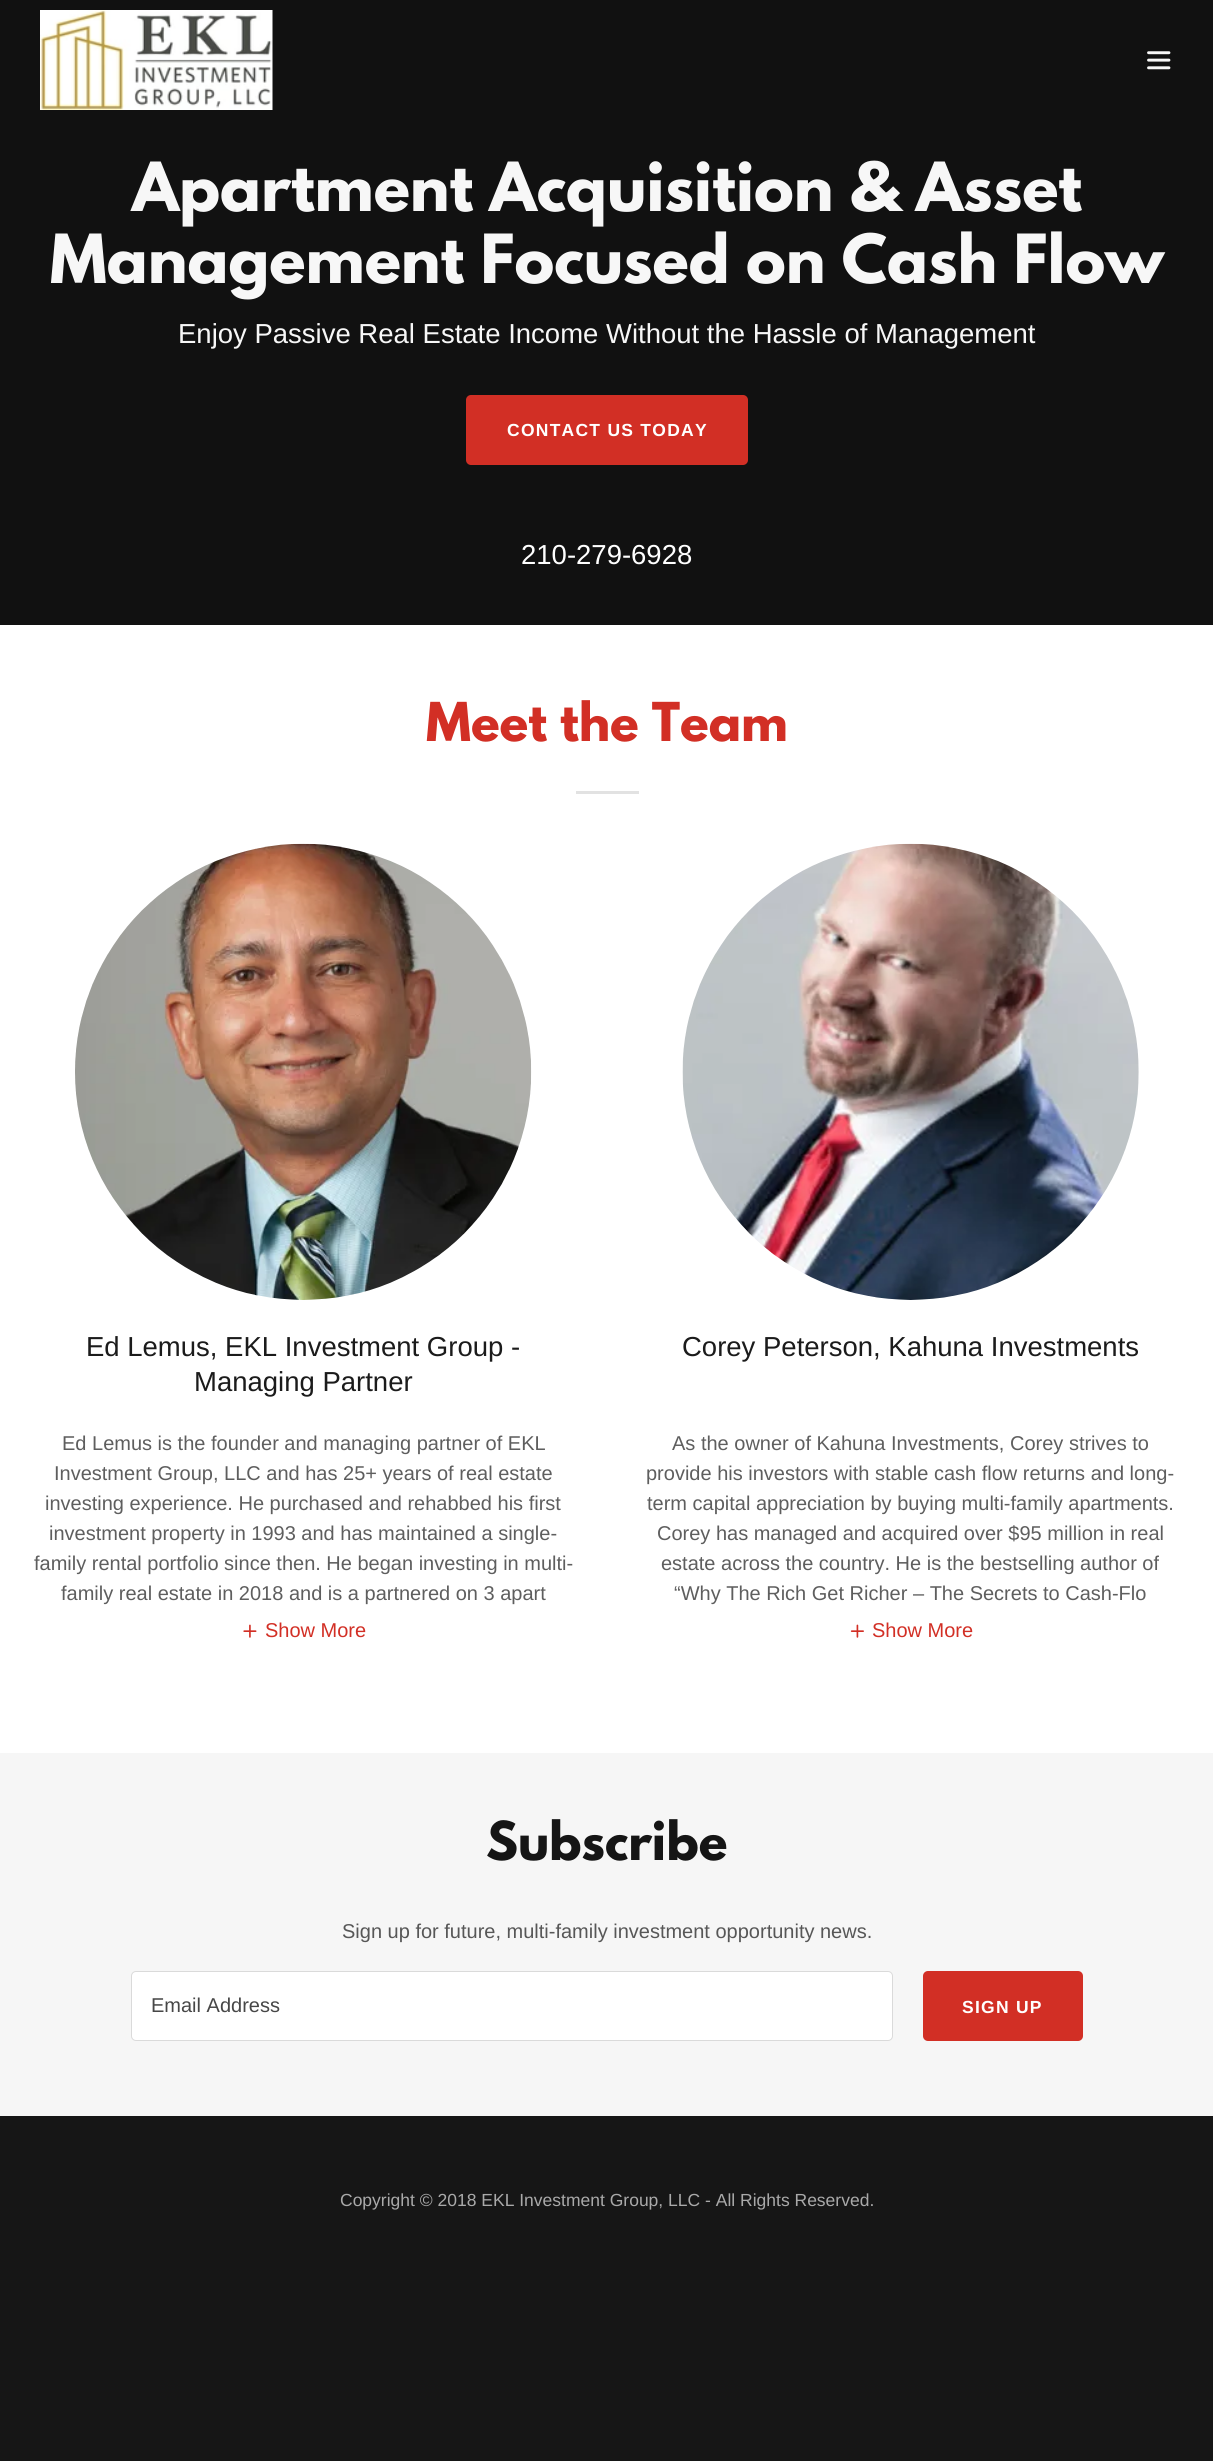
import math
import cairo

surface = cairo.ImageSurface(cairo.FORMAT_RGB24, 1213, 2461)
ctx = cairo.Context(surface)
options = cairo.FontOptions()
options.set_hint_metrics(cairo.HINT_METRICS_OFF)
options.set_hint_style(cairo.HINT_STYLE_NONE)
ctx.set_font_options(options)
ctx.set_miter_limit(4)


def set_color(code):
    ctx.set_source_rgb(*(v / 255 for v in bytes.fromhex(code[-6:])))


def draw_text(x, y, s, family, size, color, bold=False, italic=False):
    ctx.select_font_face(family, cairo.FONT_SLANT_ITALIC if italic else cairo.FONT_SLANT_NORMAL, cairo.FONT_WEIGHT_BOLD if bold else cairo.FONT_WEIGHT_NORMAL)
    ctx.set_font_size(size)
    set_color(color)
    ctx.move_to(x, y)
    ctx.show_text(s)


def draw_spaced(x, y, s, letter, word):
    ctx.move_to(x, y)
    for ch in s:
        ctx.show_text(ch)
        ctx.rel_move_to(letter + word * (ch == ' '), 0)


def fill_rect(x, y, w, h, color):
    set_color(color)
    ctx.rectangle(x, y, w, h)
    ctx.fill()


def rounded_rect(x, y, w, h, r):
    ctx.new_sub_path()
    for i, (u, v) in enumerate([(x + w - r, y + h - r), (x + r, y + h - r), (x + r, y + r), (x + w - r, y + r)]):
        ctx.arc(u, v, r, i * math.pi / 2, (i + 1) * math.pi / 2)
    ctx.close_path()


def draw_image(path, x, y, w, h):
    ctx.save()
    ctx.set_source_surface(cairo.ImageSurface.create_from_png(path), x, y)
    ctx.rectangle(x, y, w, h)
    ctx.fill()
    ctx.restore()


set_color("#161616")
ctx.paint()
fill_rect(0, 0, 1213, 625, "#111111")
draw_image("assets/img1.png", 40, 10, 233, 100)
draw_image("assets/img2.png", 1147, 51, 24, 19)
draw_text(132, 211, "Apartment Acquisition & Asset", "League Spartan", 60, "#f7f7f7", bold=True)
draw_text(50, 283, "Management Focused on Cash Flow", "League Spartan", 60, "#f7f7f7", bold=True)
draw_text(178, 343, "Enjoy Passive Real Estate Income Without the Hassle of Management", "Liberation Sans", 27.5, "#f7f7f7")
set_color("#d22f25")
rounded_rect(466, 395, 282, 70, 5)
ctx.fill()
ctx.select_font_face("Liberation Sans", cairo.FONT_SLANT_NORMAL, cairo.FONT_WEIGHT_BOLD)
ctx.set_font_size(17.5)
set_color("#ffffff")
draw_spaced(507, 436, "CONTACT US TODAY", 1.25, 0)
draw_text(521, 564, "210-279-6928", "Liberation Sans", 27.5, "#ffffff")
fill_rect(0, 625, 1213, 1128, "#ffffff")
draw_text(426, 741, "Meet the Team", "League Spartan", 47.5, "#d22f25", bold=True)
fill_rect(576, 791, 63, 3, "#e2e2e2")
draw_image("assets/img3.png", 75, 843, 457, 457)
draw_text(86, 1356, "Ed Lemus, EKL Investment Group -", "Liberation Sans", 27.5, "#1b1b1b")
draw_text(194, 1391, "Managing Partner", "Liberation Sans", 27.5, "#1b1b1b")
draw_text(62, 1450, "Ed Lemus is the founder and managing partner of EKL", "Liberation Sans", 20, "#5e5e5e")
draw_text(54, 1480, "Investment Group, LLC and has 25+ years of real estate", "Liberation Sans", 20, "#5e5e5e")
draw_text(45, 1510, "investing experience. He purchased and rehabbed his ﬁrst", "Liberation Sans", 20, "#5e5e5e")
draw_text(49, 1540, "investment property in 1993 and has maintained a single-", "Liberation Sans", 20, "#5e5e5e")
draw_text(34, 1570, "family rental portfolio since then. He began investing in multi-", "Liberation Sans", 20, "#5e5e5e")
draw_text(61, 1600, "family real estate in 2018 and is a partnered on 3 apart", "Liberation Sans", 20, "#5e5e5e")
draw_image("assets/img4.png", 243, 1624, 14, 14)
draw_text(265, 1637, "Show More", "Liberation Sans", 20, "#d22f25")
draw_image("assets/img5.png", 682, 843, 457, 457)
draw_text(682, 1356, "Corey Peterson, Kahuna Investments", "Liberation Sans", 27.5, "#1b1b1b")
draw_text(672, 1450, "As the owner of Kahuna Investments, Corey strives to", "Liberation Sans", 20, "#5e5e5e")
draw_text(646, 1480, "provide his investors with stable cash flow returns and long-", "Liberation Sans", 20, "#5e5e5e")
draw_text(647, 1510, "term capital appreciation by buying multi-family apartments.", "Liberation Sans", 20, "#5e5e5e")
draw_text(657, 1540, "Corey has managed and acquired over $95 million in real", "Liberation Sans", 20, "#5e5e5e")
draw_text(661, 1570, "estate across the country. He is the bestselling author of", "Liberation Sans", 20, "#5e5e5e")
draw_text(674, 1600, "“Why The Rich Get Richer – The Secrets to Cash-Flo", "Liberation Sans", 20, "#5e5e5e")
draw_image("assets/img6.png", 850, 1624, 14, 14)
draw_text(872, 1637, "Show More", "Liberation Sans", 20, "#d22f25")
fill_rect(0, 1753, 1213, 363, "#f6f6f6")
draw_text(486, 1860, "Subscribe", "League Spartan", 47.5, "#151515", bold=True)
draw_text(342, 1938, "Sign up for future, multi-family investment opportunity news.", "Liberation Sans", 20, "#575757")
set_color("#ffffff")
rounded_rect(131.5, 1971.5, 761, 69, 4.5)
ctx.fill_preserve()
set_color("#dadada")
ctx.set_line_width(1)
ctx.stroke()
draw_text(151, 2012, "Email Address", "Liberation Sans", 20, "#474747")
set_color("#d22f25")
rounded_rect(923, 1971, 160, 70, 5)
ctx.fill()
ctx.select_font_face("Liberation Sans", cairo.FONT_SLANT_NORMAL, cairo.FONT_WEIGHT_BOLD)
ctx.set_font_size(17.5)
set_color("#ffffff")
draw_spaced(962, 2013, "SIGN UP", 1.25, 0)
draw_text(340, 2206, "Copyright © 2018 EKL Investment Group, LLC - All Rights Reserved.", "Liberation Sans", 17.5, "#a9a9a9")
surface.write_to_png("output.png")
